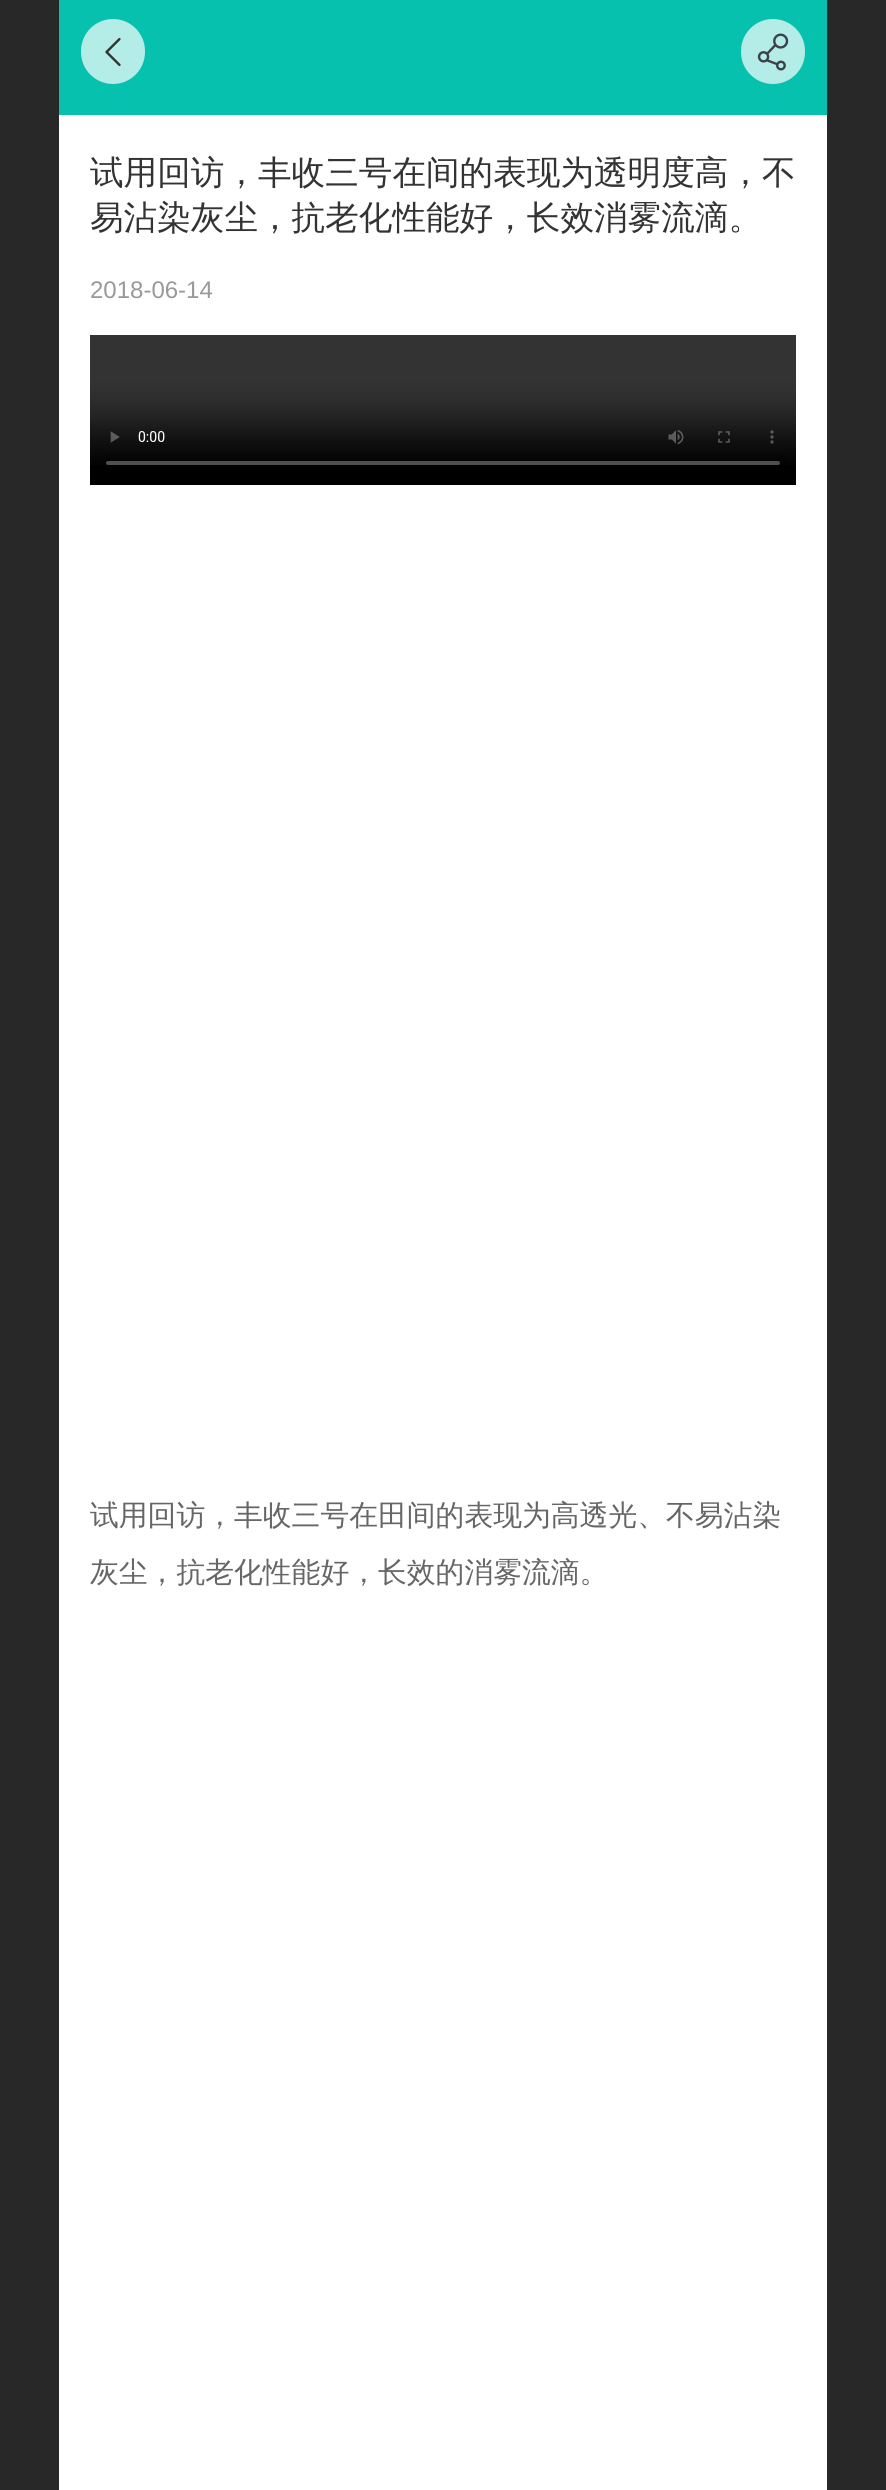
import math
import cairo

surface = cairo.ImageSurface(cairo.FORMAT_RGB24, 886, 2490)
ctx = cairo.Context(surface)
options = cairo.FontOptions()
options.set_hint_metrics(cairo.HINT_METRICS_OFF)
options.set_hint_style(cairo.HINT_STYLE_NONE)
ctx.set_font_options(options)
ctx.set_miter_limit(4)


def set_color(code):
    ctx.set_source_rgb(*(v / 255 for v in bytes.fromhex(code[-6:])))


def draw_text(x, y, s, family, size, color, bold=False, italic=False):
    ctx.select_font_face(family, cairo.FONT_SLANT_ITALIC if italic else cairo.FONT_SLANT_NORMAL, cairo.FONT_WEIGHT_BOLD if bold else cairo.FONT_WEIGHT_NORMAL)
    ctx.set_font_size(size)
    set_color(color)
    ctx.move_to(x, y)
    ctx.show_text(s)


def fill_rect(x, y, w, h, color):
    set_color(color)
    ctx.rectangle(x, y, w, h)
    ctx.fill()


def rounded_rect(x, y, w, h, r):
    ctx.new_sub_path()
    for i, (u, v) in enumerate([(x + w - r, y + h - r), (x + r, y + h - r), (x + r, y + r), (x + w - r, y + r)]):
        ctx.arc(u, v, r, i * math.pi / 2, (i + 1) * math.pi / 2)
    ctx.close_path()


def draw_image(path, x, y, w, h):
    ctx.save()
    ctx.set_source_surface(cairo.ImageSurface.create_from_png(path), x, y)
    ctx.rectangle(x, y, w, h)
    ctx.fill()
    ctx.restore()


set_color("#ffffff")
ctx.paint()
fill_rect(0, 0, 59, 2490, "#282828")
fill_rect(59, 0, 768, 115, "#06c1ae")
set_color("#b4ece7")
rounded_rect(81, 19, 64, 65, 32)
ctx.fill()
draw_image("assets/img1.png", 105, 37, 16, 30)
rounded_rect(741, 19, 64, 65, 32)
ctx.fill()
draw_image("assets/img2.png", 757, 33, 32, 38)
draw_text(90, 184, "试用回访，丰收三号在间的表现为透明度高，不", "WenQuanYi Zen Hei Medium", 33.6, "#333333")
draw_text(90, 229, "易沾染灰尘，抗老化性能好，长效消雾流滴。", "WenQuanYi Zen Hei Medium", 33.6, "#333333")
draw_text(90, 298, "2018-06-14", "Liberation Sans", 24, "#999999")
fill_rect(90, 465, 706, 20, "#000000")
draw_image("assets/img3.png", 90, 335, 706, 130)
draw_text(90, 1525, "试用回访，丰收三号在田间的表现为高透光、不易沾染", "WenQuanYi Zen Hei Medium", 28.8, "#666666")
draw_text(90, 1582, "灰尘，抗老化性能好，长效的消雾流滴。", "WenQuanYi Zen Hei Medium", 28.8, "#666666")
fill_rect(827, 0, 59, 2490, "#282828")
surface.write_to_png("output.png")
